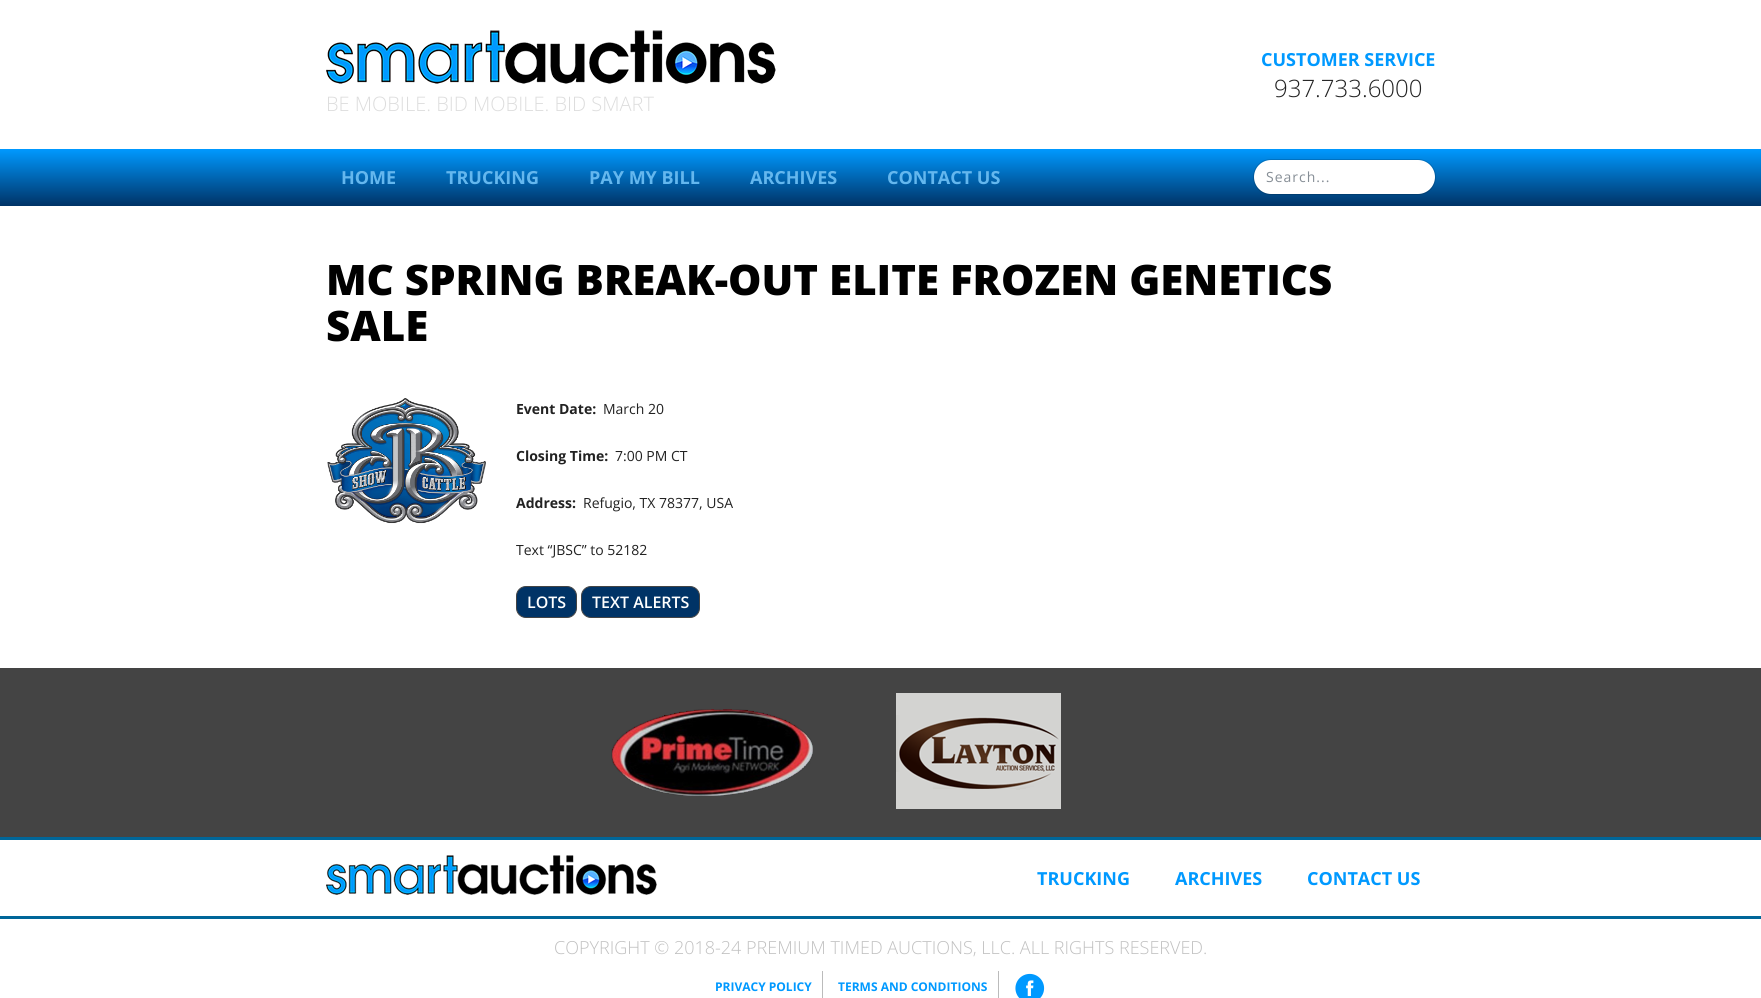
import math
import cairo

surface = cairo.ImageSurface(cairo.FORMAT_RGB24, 1761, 998)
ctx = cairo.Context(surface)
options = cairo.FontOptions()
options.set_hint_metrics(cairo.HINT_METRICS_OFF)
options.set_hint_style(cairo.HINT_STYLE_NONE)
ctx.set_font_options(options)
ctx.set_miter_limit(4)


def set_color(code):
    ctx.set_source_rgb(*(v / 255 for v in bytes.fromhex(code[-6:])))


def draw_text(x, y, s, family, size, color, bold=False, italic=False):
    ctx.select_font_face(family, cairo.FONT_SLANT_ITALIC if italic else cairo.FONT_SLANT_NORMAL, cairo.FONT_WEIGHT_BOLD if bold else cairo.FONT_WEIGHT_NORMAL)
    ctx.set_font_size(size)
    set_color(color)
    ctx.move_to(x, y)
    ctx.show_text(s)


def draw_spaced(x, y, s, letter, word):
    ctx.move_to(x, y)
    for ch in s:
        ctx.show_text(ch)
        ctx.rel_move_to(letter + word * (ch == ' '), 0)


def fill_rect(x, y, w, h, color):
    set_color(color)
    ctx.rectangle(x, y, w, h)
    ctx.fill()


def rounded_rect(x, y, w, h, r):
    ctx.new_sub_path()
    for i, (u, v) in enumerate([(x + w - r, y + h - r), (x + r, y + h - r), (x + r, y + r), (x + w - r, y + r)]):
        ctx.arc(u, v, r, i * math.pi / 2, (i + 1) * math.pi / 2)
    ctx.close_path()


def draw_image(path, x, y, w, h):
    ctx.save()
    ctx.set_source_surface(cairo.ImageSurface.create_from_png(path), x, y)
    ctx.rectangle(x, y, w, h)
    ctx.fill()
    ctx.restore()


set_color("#ffffff")
ctx.paint()
draw_text(1261, 66, "CUSTOMER SERVICE", "Open Sans", 18, "#0099ff", bold=True)
draw_text(1274, 97, "937.733.6000", "Open Sans Light", 24, "#222222")
draw_image("assets/img1.png", 326, 30, 450, 54)
draw_text(326, 111, "BE MOBILE. BID MOBILE. BID SMART", "Open Sans Light", 20, "#dddddd")
gradient = cairo.LinearGradient(881, 149, 881, 206)
gradient.add_color_stop_rgba(0, 0, 0.6, 1, 1)
gradient.add_color_stop_rgba(1, 0, 0.2, 0.4, 1)
ctx.set_source(gradient)
ctx.rectangle(0, 149, 1761, 57)
ctx.fill()
draw_text(341, 184, "HOME", "Open Sans", 18, "#64b7ee", bold=True)
draw_text(446, 184, "TRUCKING", "Open Sans", 18, "#64b7ee", bold=True)
draw_text(589, 184, "PAY MY BILL", "Open Sans", 18, "#64b7ee", bold=True)
draw_text(750, 184, "ARCHIVES", "Open Sans", 18, "#64b7ee", bold=True)
draw_text(887, 184, "CONTACT US", "Open Sans", 18, "#64b7ee", bold=True)
set_color("#ffffff")
rounded_rect(1254, 160, 181, 34, 17)
ctx.fill()
rounded_rect(1253.5, 159.5, 182, 35, 17.5)
ctx.set_source_rgba(0, 0, 0, 0.15)
ctx.set_line_width(1)
ctx.stroke()
ctx.select_font_face("Open Sans")
ctx.set_font_size(14)
set_color("#868e96")
draw_spaced(1266, 182, "Search...", 1, 0)
draw_text(326, 295, "MC SPRING BREAK-OUT ELITE FROZEN GENETICS", "Open Sans ExtraBold", 42, "#000000")
draw_text(326, 341, "SALE", "Open Sans ExtraBold", 42, "#000000")
draw_image("assets/img2.png", 327, 398, 159, 126)
draw_text(516, 414, "Event Date:", "Open Sans", 14, "#222222", bold=True)
draw_text(603, 414, "March 20", "Open Sans", 14, "#222222")
draw_text(516, 461, "Closing Time:", "Open Sans", 14, "#222222", bold=True)
draw_text(615, 461, "7:00 PM CT", "Open Sans", 14, "#222222")
draw_text(516, 508, "Address:", "Open Sans", 14, "#222222", bold=True)
draw_text(583, 508, "Refugio, TX 78377, USA", "Open Sans", 14, "#222222")
draw_text(516, 555, "Text “JBSC” to 52182", "Open Sans", 14, "#222222")
set_color("#003366")
rounded_rect(516.5, 586.5, 60, 31, 9.5)
ctx.fill_preserve()
set_color("#444444")
ctx.stroke()
draw_text(527, 608, "LOTS", "Open Sans SemiBold", 16, "#ffffff")
set_color("#003366")
rounded_rect(581.5, 586.5, 118, 31, 9.5)
ctx.fill_preserve()
set_color("#444444")
ctx.stroke()
draw_text(592, 608, "TEXT ALERTS", "Open Sans SemiBold", 16, "#ffffff")
fill_rect(0, 668, 1761, 169, "#444444")
draw_image("assets/img3.png", 611, 709, 202, 87)
draw_image("assets/img4.png", 896, 693, 165, 116)
fill_rect(0, 837, 1761, 3, "#006699")
draw_image("assets/img5.png", 326, 855, 331, 40)
draw_text(1037, 885, "TRUCKING", "Open Sans", 18, "#0099ff", bold=True)
draw_text(1175, 885, "ARCHIVES", "Open Sans", 18, "#0099ff", bold=True)
draw_text(1307, 885, "CONTACT US", "Open Sans", 18, "#0099ff", bold=True)
fill_rect(0, 916, 1761, 3, "#006699")
draw_text(554, 954, "COPYRIGHT © 2018-24 PREMIUM TIMED AUCTIONS, LLC. ALL RIGHTS RESERVED.", "Open Sans Light", 18, "#c0c0c0")
draw_text(715, 991, "PRIVACY POLICY", "Open Sans", 12, "#0099ff", bold=True)
fill_rect(822, 971, 1, 27, "#bbbbbb")
draw_text(838, 991, "TERMS AND CONDITIONS", "Open Sans", 12, "#0099ff", bold=True)
fill_rect(998, 971, 1, 27, "#bbbbbb")
draw_image("assets/img6.png", 1015, 973, 30, 25)
surface.write_to_png("output.png")
